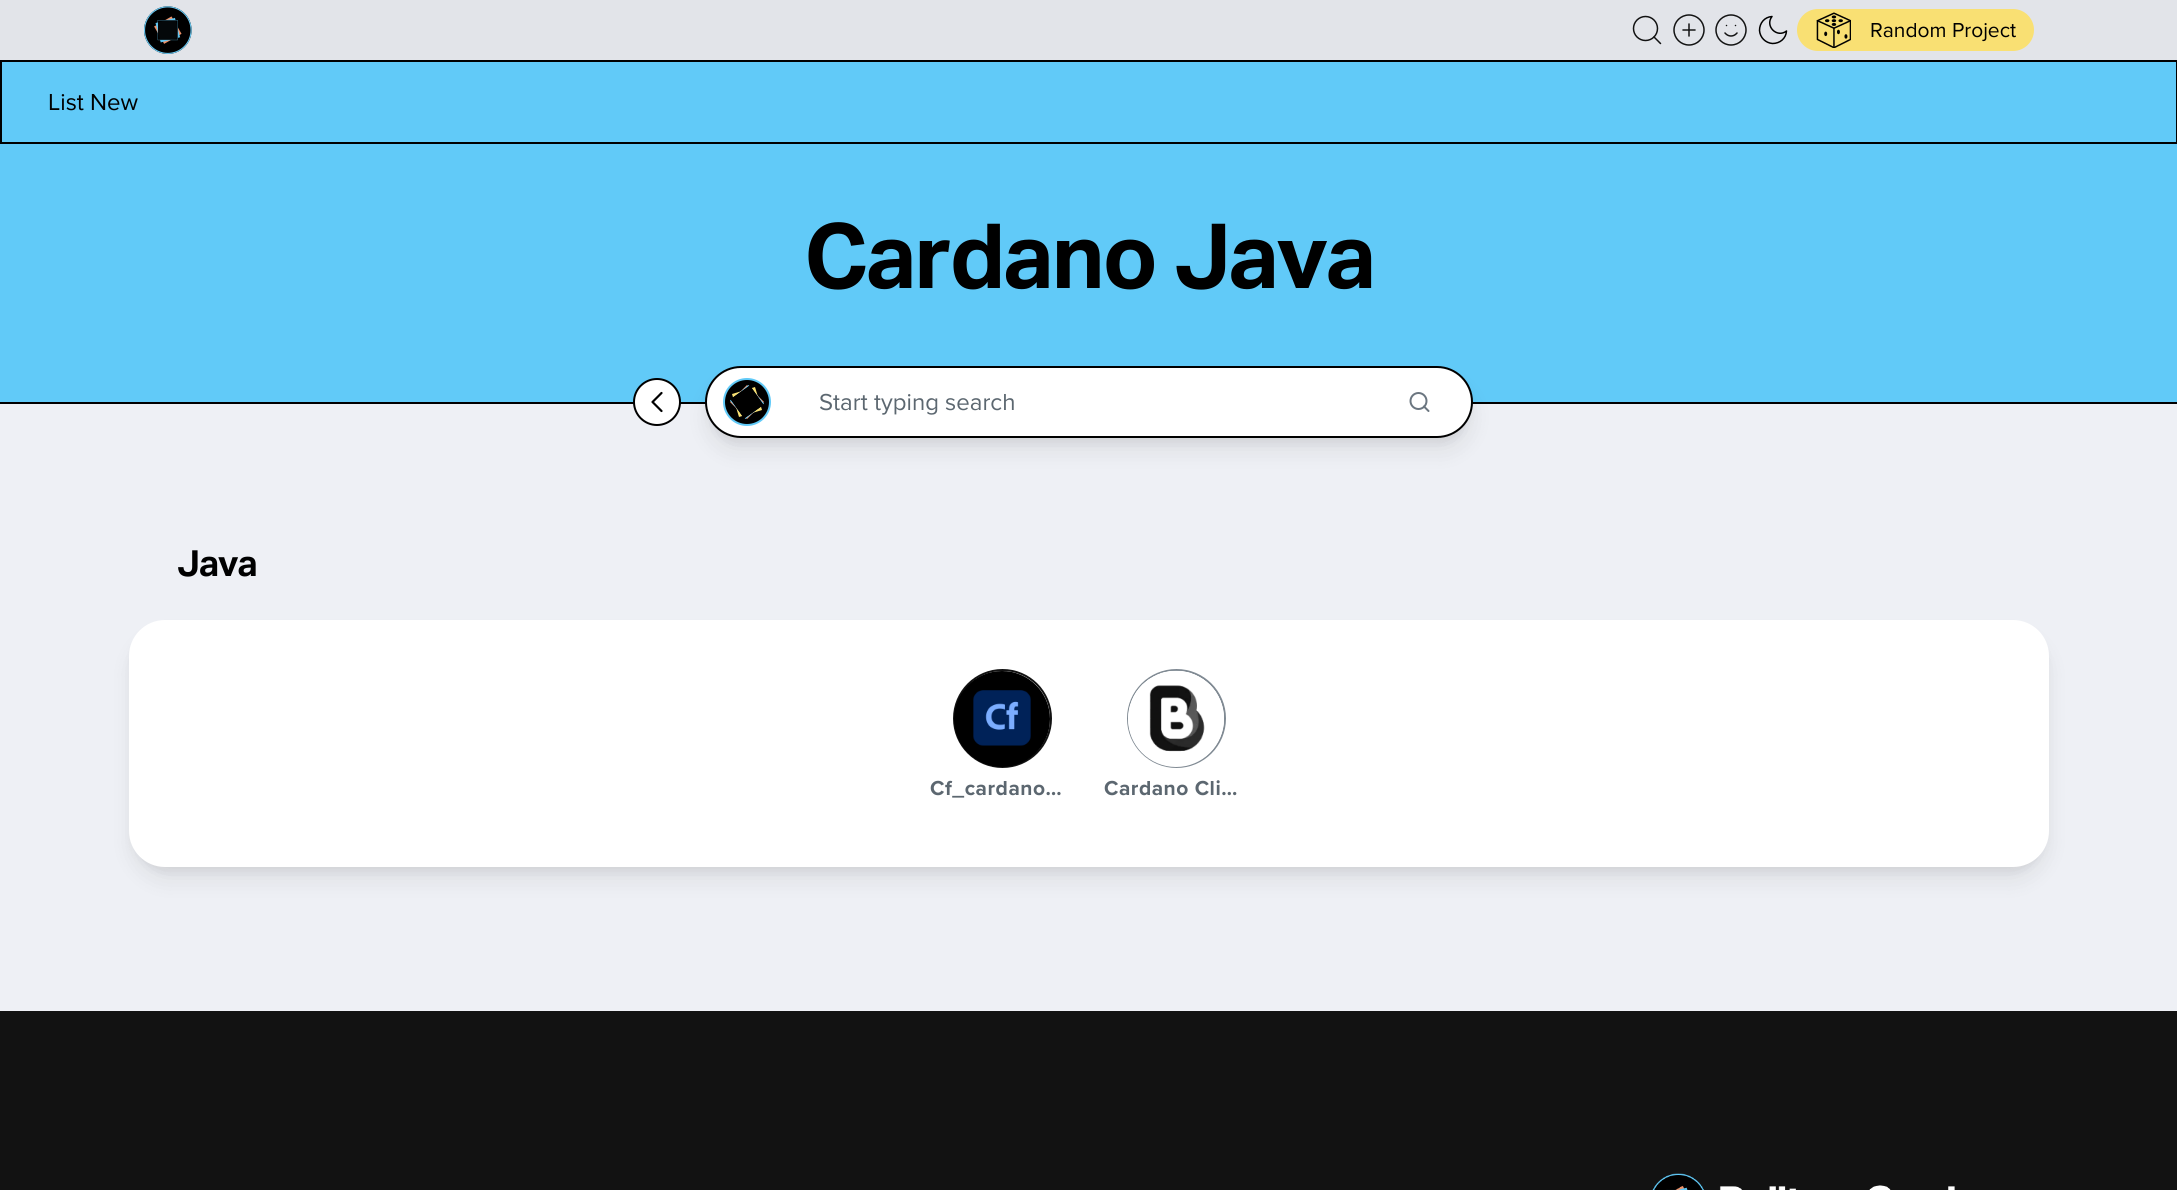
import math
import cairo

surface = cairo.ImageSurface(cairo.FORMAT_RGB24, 2177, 1190)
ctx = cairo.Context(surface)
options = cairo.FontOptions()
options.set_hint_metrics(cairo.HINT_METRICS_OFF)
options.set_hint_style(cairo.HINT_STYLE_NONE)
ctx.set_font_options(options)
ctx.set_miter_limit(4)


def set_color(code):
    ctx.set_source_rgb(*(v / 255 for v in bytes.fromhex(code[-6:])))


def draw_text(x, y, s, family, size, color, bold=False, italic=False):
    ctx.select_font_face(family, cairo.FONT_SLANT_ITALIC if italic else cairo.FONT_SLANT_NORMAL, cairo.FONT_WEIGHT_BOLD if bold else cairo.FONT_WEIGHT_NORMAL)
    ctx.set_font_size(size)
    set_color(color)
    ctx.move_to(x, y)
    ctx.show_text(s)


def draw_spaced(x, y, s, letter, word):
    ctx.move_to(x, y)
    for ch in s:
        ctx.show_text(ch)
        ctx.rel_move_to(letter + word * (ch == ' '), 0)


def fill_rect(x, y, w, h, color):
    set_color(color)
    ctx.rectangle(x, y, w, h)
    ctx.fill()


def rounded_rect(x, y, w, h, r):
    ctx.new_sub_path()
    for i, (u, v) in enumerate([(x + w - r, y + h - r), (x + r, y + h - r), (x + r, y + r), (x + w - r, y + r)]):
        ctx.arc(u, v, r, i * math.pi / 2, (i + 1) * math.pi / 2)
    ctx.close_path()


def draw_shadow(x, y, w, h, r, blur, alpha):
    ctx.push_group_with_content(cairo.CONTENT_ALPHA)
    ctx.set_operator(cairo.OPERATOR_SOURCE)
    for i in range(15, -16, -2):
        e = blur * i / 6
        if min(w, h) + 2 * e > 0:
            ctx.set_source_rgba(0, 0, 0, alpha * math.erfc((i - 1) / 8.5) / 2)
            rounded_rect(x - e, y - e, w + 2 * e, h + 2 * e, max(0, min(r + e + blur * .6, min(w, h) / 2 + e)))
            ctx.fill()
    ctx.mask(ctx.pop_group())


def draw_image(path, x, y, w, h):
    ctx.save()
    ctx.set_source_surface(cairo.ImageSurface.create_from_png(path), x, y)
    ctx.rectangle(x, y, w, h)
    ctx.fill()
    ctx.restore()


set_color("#e2e4e9")
ctx.paint()
draw_image("assets/img1.png", 144, 6, 48, 48)
ctx.arc(1645.5, 28.5, 12, 0, 2 * math.pi)
set_color("#121212")
ctx.set_line_width(1.5)
ctx.stroke()
ctx.new_path()
ctx.move_to(1660.5, 43.5)
ctx.line_to(1654, 37)
ctx.set_line_cap(cairo.LINE_CAP_ROUND)
ctx.set_line_join(cairo.LINE_JOIN_ROUND)
ctx.stroke()
ctx.arc(1689, 30, 15, 0, 2 * math.pi)
ctx.set_line_cap(cairo.LINE_CAP_BUTT)
ctx.set_line_join(cairo.LINE_JOIN_MITER)
ctx.stroke()
ctx.new_path()
ctx.move_to(1689, 24)
ctx.line_to(1689, 36)
ctx.move_to(1683, 30)
ctx.line_to(1695, 30)
ctx.set_line_cap(cairo.LINE_CAP_ROUND)
ctx.set_line_join(cairo.LINE_JOIN_ROUND)
ctx.stroke()
draw_image("assets/img2.png", 1715, 14, 32, 32)
ctx.new_path()
ctx.move_to(1786.5, 31)
ctx.curve_to(1786, 38.5, 1780, 43.5, 1772.5, 43.5)
ctx.curve_to(1765.5, 43, 1760, 37.5, 1759.5, 30.5)
ctx.curve_to(1759.5, 23, 1764.5, 17, 1772, 16.5)
ctx.curve_to(1764.5, 26, 1777, 38.5, 1786.5, 31)
ctx.close_path()
set_color("#000000")
ctx.stroke()
set_color("#f9e073")
rounded_rect(1797, 9, 237, 42, 21)
ctx.fill()
draw_image("assets/img3.png", 1816, 12, 35, 36)
draw_text(1870, 37, "Random Project", "Proxima Nova", 21, "#000000")
fill_rect(0, 62, 2177, 340, "#61caf8")
ctx.rectangle(1, 61, 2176, 82)
set_color("#000000")
ctx.set_line_width(2)
ctx.set_line_cap(cairo.LINE_CAP_BUTT)
ctx.set_line_join(cairo.LINE_JOIN_MITER)
ctx.stroke()
draw_text(48, 110, "List New", "Proxima Nova", 24, "#000000")
ctx.select_font_face("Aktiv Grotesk", cairo.FONT_SLANT_NORMAL, cairo.FONT_WEIGHT_BOLD)
ctx.set_font_size(90)
draw_spaced(804, 288, "Cardano Java", -2.25, 0)
fill_rect(0, 404, 2177, 607, "#eef0f5")
fill_rect(0, 402, 2177, 2, "#000000")
set_color("#ffffff")
ctx.new_path()
ctx.arc(657, 402, 23, 0, 2 * math.pi)
ctx.fill_preserve()
set_color("#000000")
ctx.stroke()
ctx.new_path()
ctx.move_to(661.5, 411)
ctx.line_to(652.5, 402)
ctx.line_to(661.5, 393)
ctx.set_line_width(2.2)
ctx.set_line_cap(cairo.LINE_CAP_ROUND)
ctx.set_line_join(cairo.LINE_JOIN_ROUND)
ctx.stroke()
set_color("#121212")
draw_shadow(708, 375, 762, 66, 33, 4.5, 0.05)
draw_shadow(710, 386, 759, 63, 31.5, 11, 0.1)
set_color("#ffffff")
rounded_rect(706, 367, 766, 70, 35)
ctx.fill_preserve()
set_color("#000000")
ctx.set_line_width(2)
ctx.set_line_cap(cairo.LINE_CAP_BUTT)
ctx.set_line_join(cairo.LINE_JOIN_MITER)
ctx.stroke()
ctx.arc(747, 402, 23, 0, 2 * math.pi)
ctx.fill_preserve()
set_color("#61caf8")
ctx.stroke()
set_color("#f9e073")
ctx.new_path()
ctx.move_to(732, 394)
ctx.line_to(755, 387)
ctx.line_to(762, 410)
ctx.line_to(739, 417)
ctx.close_path()
ctx.fill()
set_color("#f8966b")
ctx.new_path()
ctx.move_to(730, 402)
ctx.line_to(747, 385)
ctx.line_to(764, 402)
ctx.line_to(747, 419)
ctx.close_path()
ctx.fill()
set_color("#61caf8")
ctx.new_path()
ctx.move_to(730, 400.5)
ctx.line_to(748.5, 385)
ctx.line_to(764, 403.5)
ctx.line_to(745.5, 419)
ctx.close_path()
ctx.fill()
set_color("#000000")
ctx.new_path()
ctx.move_to(730.5, 399)
ctx.line_to(750, 385.5)
ctx.line_to(763.5, 405)
ctx.line_to(744, 418.5)
ctx.close_path()
ctx.fill()
ctx.new_path()
ctx.move_to(731.5, 399.5)
ctx.line_to(749.5, 386.5)
ctx.line_to(762.5, 404.5)
ctx.line_to(744.5, 417.5)
ctx.close_path()
ctx.set_line_width(1.5)
ctx.stroke()
draw_text(819, 410, "Start typing search", "Proxima Nova", 24, "#5c6770")
ctx.new_path()
ctx.arc(1418.5, 401, 8, 0, 2 * math.pi)
set_color("#6b7680")
ctx.set_line_width(2)
ctx.stroke()
ctx.new_path()
ctx.move_to(1428.5, 411)
ctx.line_to(1424, 406.5)
ctx.set_line_cap(cairo.LINE_CAP_ROUND)
ctx.set_line_join(cairo.LINE_JOIN_ROUND)
ctx.stroke()
ctx.select_font_face("Aktiv Grotesk", cairo.FONT_SLANT_NORMAL, cairo.FONT_WEIGHT_BOLD)
ctx.set_font_size(36)
set_color("#000000")
draw_spaced(177, 576, "Java", -1, 0)
set_color("#121212")
draw_shadow(132, 629, 1914, 241, 33, 4.5, 0.05)
draw_shadow(134, 639, 1911, 239, 32, 11, 0.1)
set_color("#ffffff")
rounded_rect(129, 620, 1920, 247, 36)
ctx.fill()
ctx.arc(1002.5, 718.5, 48.5, 0, 2 * math.pi)
set_color("#121212")
ctx.set_line_cap(cairo.LINE_CAP_BUTT)
ctx.set_line_join(cairo.LINE_JOIN_MITER)
ctx.stroke()
set_color("#000000")
ctx.arc(1002, 719, 48, 0, 2 * math.pi)
ctx.fill()
draw_image("assets/img4.png", 973, 690, 58, 56)
ctx.select_font_face("Proxima Nova", cairo.FONT_SLANT_NORMAL, cairo.FONT_WEIGHT_BOLD)
ctx.set_font_size(21)
set_color("#5c6770")
draw_spaced(930, 795, "Cf_cardano…", 0.5, 0)
ctx.new_path()
ctx.arc(1176.5, 718.5, 48.5, 0, 2 * math.pi)
set_color("#808a93")
ctx.stroke()
set_color("#ffffff")
ctx.arc(1176, 719, 48, 0, 2 * math.pi)
ctx.fill()
draw_image("assets/img5.png", 1128, 670, 96, 87)
set_color("#5c6770")
draw_spaced(1104, 795, "Cardano Cli…", 0.5, 0)
fill_rect(0, 1011, 2177, 179, "#121212")
draw_image("assets/img6.png", 1652, 1173, 303, 17)
surface.write_to_png("output.png")
